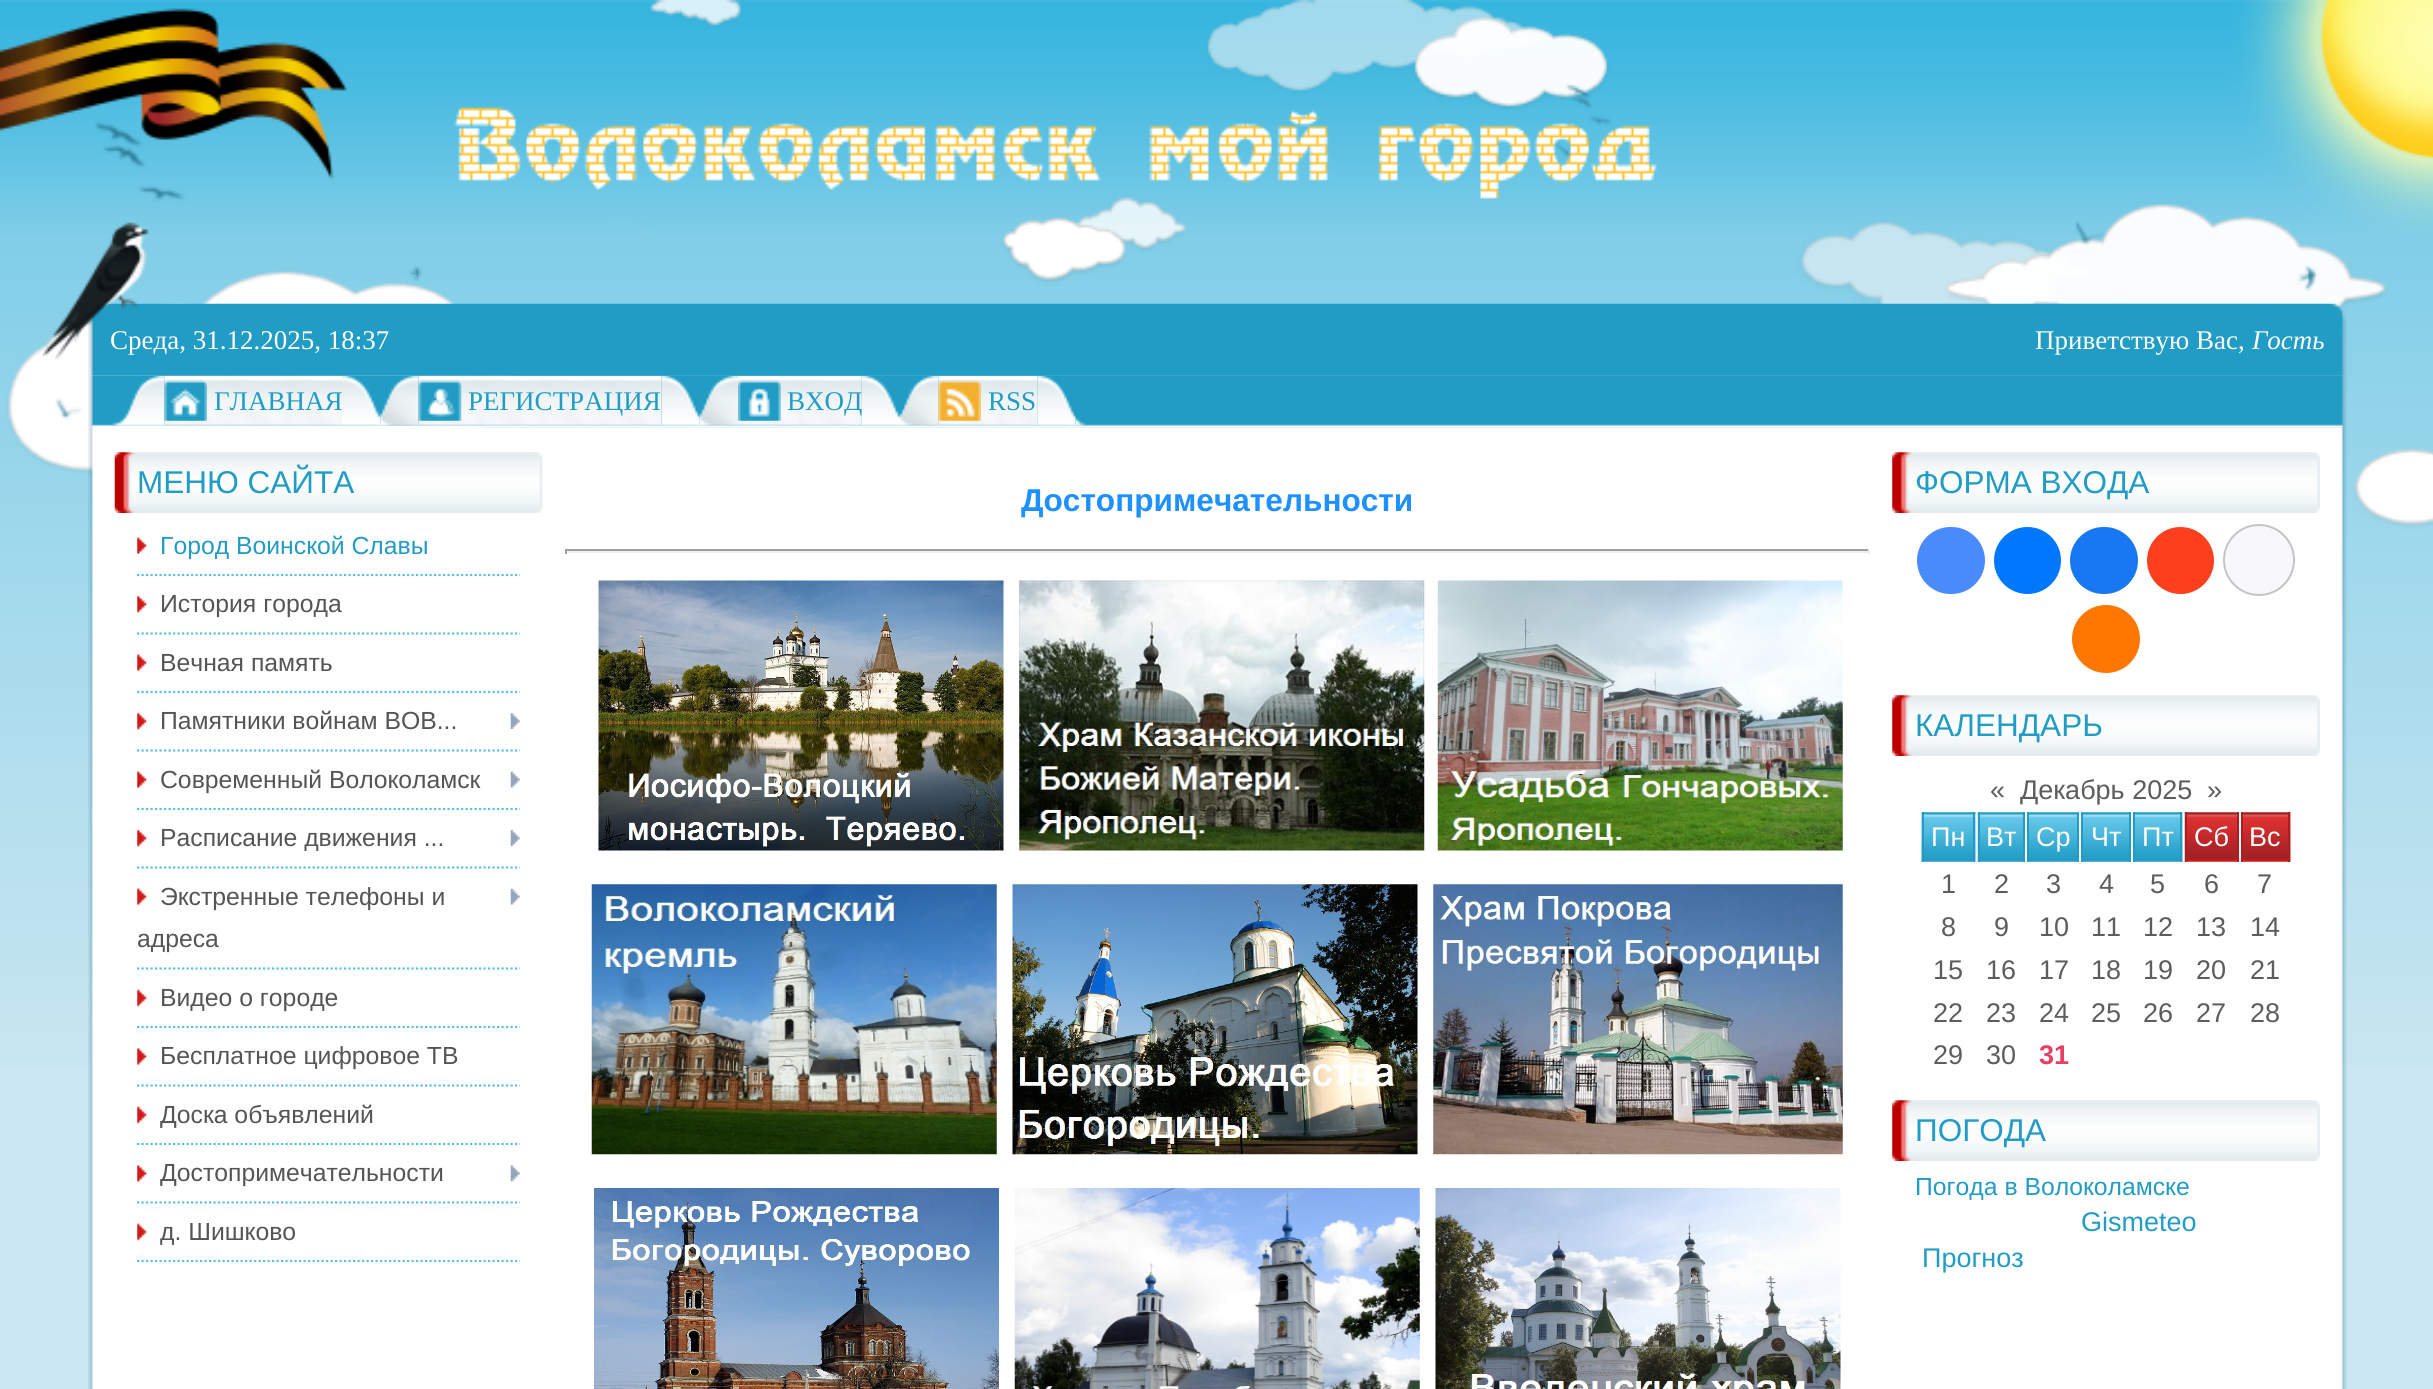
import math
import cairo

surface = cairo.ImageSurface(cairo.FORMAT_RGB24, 2433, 1389)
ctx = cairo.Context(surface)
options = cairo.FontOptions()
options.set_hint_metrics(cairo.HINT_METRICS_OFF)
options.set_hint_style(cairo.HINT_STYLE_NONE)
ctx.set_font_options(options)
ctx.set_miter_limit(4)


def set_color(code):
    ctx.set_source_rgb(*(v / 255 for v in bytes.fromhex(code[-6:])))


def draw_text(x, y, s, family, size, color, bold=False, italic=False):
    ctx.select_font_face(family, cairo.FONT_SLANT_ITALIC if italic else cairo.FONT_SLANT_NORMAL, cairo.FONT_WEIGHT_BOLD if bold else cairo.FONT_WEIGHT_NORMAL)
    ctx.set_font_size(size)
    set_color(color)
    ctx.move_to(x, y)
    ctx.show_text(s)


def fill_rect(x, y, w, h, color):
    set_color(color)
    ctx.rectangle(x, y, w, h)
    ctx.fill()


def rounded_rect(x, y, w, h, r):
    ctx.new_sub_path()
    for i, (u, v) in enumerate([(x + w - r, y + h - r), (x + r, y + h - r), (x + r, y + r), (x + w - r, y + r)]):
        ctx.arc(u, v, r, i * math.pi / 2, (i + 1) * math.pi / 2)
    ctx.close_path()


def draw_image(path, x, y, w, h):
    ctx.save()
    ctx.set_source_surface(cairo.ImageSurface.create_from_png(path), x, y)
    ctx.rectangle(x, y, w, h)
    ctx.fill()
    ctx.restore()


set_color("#cbe7f1")
ctx.paint()
draw_image("assets/img1.png", 0, 0, 2433, 1065)
draw_image("assets/img2.png", 0, 0, 2433, 235)
draw_image("assets/img5.png", 88, 375, 2259, 53)
draw_image("assets/img6.png", 112, 375, 53, 51)
draw_image("assets/img7.png", 164, 375, 178, 51)
draw_image("assets/img9.png", 342, 375, 39, 51)
draw_image("assets/img10.png", 380, 375, 39, 51)
draw_image("assets/img11.png", 418, 375, 244, 51)
draw_image("assets/img13.png", 661, 375, 39, 51)
draw_image("assets/img14.png", 699, 375, 39, 51)
draw_image("assets/img15.png", 738, 375, 124, 51)
draw_text(787, 410, "ВХОД", "Liberation Serif", 27, "#219cc5")
draw_image("assets/img17.png", 861, 375, 39, 51)
draw_image("assets/img18.png", 900, 375, 39, 51)
draw_image("assets/img19.png", 938, 375, 100, 51)
draw_image("assets/img21.png", 1037, 375, 39, 51)
draw_image("assets/img3.png", 88, 303, 2259, 73)
draw_text(110, 349, "Среда, 31.12.2025, 18:37", "Liberation Serif", 27, "#ffffff")
draw_image("assets/img4.png", 42, 222, 107, 139)
draw_text(2035, 349, "Приветствую Вас,", "Liberation Serif", 27, "#ffffff")
draw_text(2252, 349, "Гость", "Liberation Serif", 27, "#ffffff", italic=True)
draw_image("assets/img8.png", 164, 380, 43, 41)
draw_text(214, 410, "ГЛАВНАЯ", "Liberation Serif", 27, "#219cc5")
draw_image("assets/img12.png", 418, 380, 44, 41)
draw_text(468, 410, "РЕГИСТРАЦИЯ", "Liberation Serif", 27, "#219cc5")
draw_image("assets/img16.png", 738, 380, 43, 41)
draw_image("assets/img20.png", 938, 380, 43, 41)
draw_text(988, 410, "RSS", "Liberation Serif", 27, "#219cc5")
draw_image("assets/img22.png", 1075, 418, 11, 8)
draw_image("assets/img23.png", 88, 427, 2259, 962)
draw_image("assets/img24.png", 114, 452, 429, 61)
draw_text(137, 493, "МЕНЮ САЙТА", "Liberation Sans", 31.5, "#219cc5")
ctx.new_path()
ctx.move_to(137, 575)
ctx.line_to(520, 575)
set_color("#5ec2e4")
ctx.set_line_width(2.2)
ctx.set_dash([2.25, 2.25])
ctx.stroke()
draw_image("assets/img25.png", 137, 537, 10, 18)
draw_text(160, 554, "Город Воинской Славы", "Liberation Sans", 24.75, "#219cc5")
ctx.new_path()
ctx.move_to(137, 633.5)
ctx.line_to(520, 633.5)
set_color("#5ec2e4")
ctx.stroke()
draw_image("assets/img26.png", 137, 595, 10, 18)
draw_text(160, 612, "История города", "Liberation Sans", 24.75, "#555555")
ctx.new_path()
ctx.move_to(137, 692)
ctx.line_to(520, 692)
set_color("#5ec2e4")
ctx.stroke()
draw_image("assets/img25.png", 137, 654, 10, 18)
draw_text(160, 671, "Вечная память", "Liberation Sans", 24.75, "#555555")
ctx.new_path()
ctx.move_to(137, 750.5)
ctx.line_to(520, 750.5)
set_color("#5ec2e4")
ctx.stroke()
draw_image("assets/img26.png", 137, 712, 10, 18)
draw_text(160, 729, "Памятники войнам ВОВ...", "Liberation Sans", 24.75, "#555555")
draw_image("assets/img27.png", 510, 713, 10, 16)
ctx.new_path()
ctx.move_to(137, 809)
ctx.line_to(520, 809)
set_color("#5ec2e4")
ctx.stroke()
draw_image("assets/img25.png", 137, 771, 10, 18)
draw_text(160, 788, "Современный Волоколамск", "Liberation Sans", 24.75, "#555555")
draw_image("assets/img28.png", 510, 771, 10, 17)
ctx.new_path()
ctx.move_to(137, 867.5)
ctx.line_to(520, 867.5)
set_color("#5ec2e4")
ctx.stroke()
draw_image("assets/img29.png", 137, 829, 10, 18)
draw_text(160, 846, "Расписание движения ...", "Liberation Sans", 24.75, "#555555")
draw_image("assets/img30.png", 510, 830, 10, 16)
ctx.new_path()
ctx.move_to(137, 968.5)
ctx.line_to(520, 968.5)
set_color("#5ec2e4")
ctx.stroke()
draw_image("assets/img25.png", 137, 888, 10, 18)
draw_text(160, 905, "Экстренные телефоны и", "Liberation Sans", 24.75, "#555555")
draw_image("assets/img28.png", 510, 888, 10, 17)
draw_text(137, 947, "адреса", "Liberation Sans", 24.75, "#555555")
ctx.new_path()
ctx.move_to(137, 1027)
ctx.line_to(520, 1027)
set_color("#5ec2e4")
ctx.stroke()
draw_image("assets/img31.png", 137, 989, 10, 18)
draw_text(160, 1006, "Видео о городе", "Liberation Sans", 24.75, "#555555")
ctx.new_path()
ctx.move_to(137, 1085.5)
ctx.line_to(520, 1085.5)
set_color("#5ec2e4")
ctx.stroke()
draw_image("assets/img32.png", 137, 1048, 10, 17)
draw_text(160, 1064, "Бесплатное цифровое ТВ", "Liberation Sans", 24.75, "#555555")
ctx.new_path()
ctx.move_to(137, 1144)
ctx.line_to(520, 1144)
set_color("#5ec2e4")
ctx.stroke()
draw_image("assets/img31.png", 137, 1106, 10, 18)
draw_text(160, 1123, "Доска объявлений", "Liberation Sans", 24.75, "#555555")
ctx.new_path()
ctx.move_to(137, 1202.5)
ctx.line_to(520, 1202.5)
set_color("#5ec2e4")
ctx.stroke()
draw_image("assets/img33.png", 137, 1165, 10, 17)
draw_text(160, 1181, "Достопримечательности", "Liberation Sans", 24.75, "#555555")
draw_image("assets/img34.png", 510, 1165, 10, 17)
ctx.new_path()
ctx.move_to(137, 1261)
ctx.line_to(520, 1261)
set_color("#5ec2e4")
ctx.stroke()
draw_image("assets/img31.png", 137, 1223, 10, 18)
draw_text(160, 1240, "д. Шишково", "Liberation Sans", 24.75, "#555555")
draw_text(1021, 511, "Достопримечательности", "Liberation Sans", 31.6, "#1e90ff", bold=True)
fill_rect(565, 549, 1305, 2, "#9f9f9f")
fill_rect(1868, 549, 2, 5, "#eeeeee")
fill_rect(565, 551, 1305, 2, "#eeeeee")
fill_rect(565, 549, 2, 5, "#9f9f9f")
draw_image("assets/img35.png", 598, 580, 406, 271)
draw_image("assets/img36.png", 1019, 580, 406, 271)
draw_image("assets/img37.png", 1437, 580, 406, 271)
draw_image("assets/img38.png", 591, 884, 406, 271)
draw_image("assets/img39.png", 1012, 884, 406, 271)
draw_image("assets/img40.png", 1433, 884, 410, 271)
draw_image("assets/img41.png", 594, 1188, 405, 201)
draw_image("assets/img42.png", 1014, 1188, 406, 201)
draw_image("assets/img43.png", 1435, 1188, 406, 201)
draw_image("assets/img44.png", 1892, 452, 428, 61)
draw_text(1915, 493, "ФОРМА ВХОДА", "Liberation Sans", 31.5, "#219cc5")
set_color("#498bfa")
rounded_rect(1917, 527, 68, 67, 33.5)
ctx.fill()
set_color("#0077ff")
ctx.arc(2027.5, 560.5, 33.5, 0, 2 * math.pi)
ctx.fill()
set_color("#1877f2")
rounded_rect(2070, 527, 68, 67, 33.5)
ctx.fill()
set_color("#fc3f1d")
ctx.arc(2180.5, 560.5, 33.5, 0, 2 * math.pi)
ctx.fill()
set_color("#f8f8fc")
ctx.arc(2259, 560, 35, 0, 2 * math.pi)
ctx.fill_preserve()
set_color("#c4c4c4")
ctx.set_line_width(2)
ctx.set_dash([])
ctx.stroke()
set_color("#ff7700")
ctx.arc(2106, 639, 34, 0, 2 * math.pi)
ctx.fill()
draw_image("assets/img44.png", 1892, 695, 428, 61)
draw_text(1915, 736, "КАЛЕНДАРЬ", "Liberation Sans", 31.5, "#219cc5")
draw_text(1990, 799, "«", "Liberation Sans", 27, "#5d5d5d")
draw_text(2020, 799, "Декабрь 2025", "Liberation Sans", 27, "#5d5d5d")
draw_text(2207, 799, "»", "Liberation Sans", 27, "#5d5d5d")
draw_image("assets/img45.png", 1921, 812, 55, 50)
fill_rect(1973, 812, 2, 50, "#219cc5")
fill_rect(1922, 812, 2, 50, "#219cc5")
draw_text(1931, 846, "Пн", "Liberation Sans", 27, "#ffffff")
draw_image("assets/img46.png", 1977, 812, 46, 50)
fill_rect(2023, 812, 2, 50, "#219cc5")
fill_rect(1978, 812, 2, 50, "#219cc5")
draw_text(1986, 846, "Вт", "Liberation Sans", 27, "#ffffff")
draw_image("assets/img47.png", 2029, 812, 48, 50)
fill_rect(2077, 812, 2, 50, "#219cc5")
fill_rect(2027, 812, 2, 50, "#219cc5")
draw_text(2036, 846, "Ср", "Liberation Sans", 27, "#ffffff")
draw_image("assets/img48.png", 2083, 812, 46, 50)
fill_rect(2129, 812, 2, 50, "#219cc5")
fill_rect(2081, 812, 2, 50, "#219cc5")
draw_text(2091, 846, "Чт", "Liberation Sans", 27, "#ffffff")
draw_image("assets/img49.png", 2135, 812, 48, 50)
fill_rect(2180, 812, 2, 50, "#219cc5")
fill_rect(2133, 812, 2, 50, "#219cc5")
draw_text(2142, 846, "Пт", "Liberation Sans", 27, "#ffffff")
draw_image("assets/img50.png", 2184, 812, 53, 50)
fill_rect(2237, 812, 2, 50, "#ac1e20")
fill_rect(2185, 812, 2, 50, "#ac1e20")
draw_text(2194, 846, "Сб", "Liberation Sans", 27, "#ffffff")
draw_image("assets/img51.png", 2243, 812, 48, 50)
fill_rect(2288, 812, 2, 50, "#ac1e20")
fill_rect(2241, 812, 2, 50, "#ac1e20")
draw_text(2249, 846, "Вс", "Liberation Sans", 27, "#ffffff")
draw_text(1941, 893, "1", "Liberation Sans", 27, "#5d5d5d")
draw_text(1994, 893, "2", "Liberation Sans", 27, "#5d5d5d")
draw_text(2046, 893, "3", "Liberation Sans", 27, "#5d5d5d")
draw_text(2099, 893, "4", "Liberation Sans", 27, "#5d5d5d")
draw_text(2150, 893, "5", "Liberation Sans", 27, "#5d5d5d")
draw_text(2204, 893, "6", "Liberation Sans", 27, "#5d5d5d")
draw_text(2257, 893, "7", "Liberation Sans", 27, "#5d5d5d")
draw_text(1941, 936, "8", "Liberation Sans", 27, "#5d5d5d")
draw_text(1994, 936, "9", "Liberation Sans", 27, "#5d5d5d")
draw_text(2039, 936, "10", "Liberation Sans", 27, "#5d5d5d")
draw_text(2091, 936, "11", "Liberation Sans", 27, "#5d5d5d")
draw_text(2143, 936, "12", "Liberation Sans", 27, "#5d5d5d")
draw_text(2196, 936, "13", "Liberation Sans", 27, "#5d5d5d")
draw_text(2250, 936, "14", "Liberation Sans", 27, "#5d5d5d")
draw_text(1933, 979, "15", "Liberation Sans", 27, "#5d5d5d")
draw_text(1986, 979, "16", "Liberation Sans", 27, "#5d5d5d")
draw_text(2039, 979, "17", "Liberation Sans", 27, "#5d5d5d")
draw_text(2091, 979, "18", "Liberation Sans", 27, "#5d5d5d")
draw_text(2143, 979, "19", "Liberation Sans", 27, "#5d5d5d")
draw_text(2196, 979, "20", "Liberation Sans", 27, "#5d5d5d")
draw_text(2250, 979, "21", "Liberation Sans", 27, "#5d5d5d")
draw_text(1933, 1022, "22", "Liberation Sans", 27, "#5d5d5d")
draw_text(1986, 1022, "23", "Liberation Sans", 27, "#5d5d5d")
draw_text(2039, 1022, "24", "Liberation Sans", 27, "#5d5d5d")
draw_text(2091, 1022, "25", "Liberation Sans", 27, "#5d5d5d")
draw_text(2143, 1022, "26", "Liberation Sans", 27, "#5d5d5d")
draw_text(2196, 1022, "27", "Liberation Sans", 27, "#5d5d5d")
draw_text(2250, 1022, "28", "Liberation Sans", 27, "#5d5d5d")
draw_text(1933, 1064, "29", "Liberation Sans", 27, "#5d5d5d")
draw_text(1986, 1064, "30", "Liberation Sans", 27, "#5d5d5d")
draw_text(2039, 1064, "31", "Liberation Sans", 27, "#e83f63", bold=True)
draw_image("assets/img44.png", 1892, 1100, 428, 61)
draw_text(1915, 1141, "ПОГОДА", "Liberation Sans", 31.5, "#219cc5")
draw_text(1915, 1195, "Погода в Волоколамске", "Liberation Sans", 24.75, "#219cc5")
draw_text(2081, 1231, "Gismeteo", "Liberation Sans", 27, "#219cc5")
draw_text(1922, 1267, "Прогноз", "Liberation Sans", 27, "#219cc5")
surface.write_to_png("output.png")
